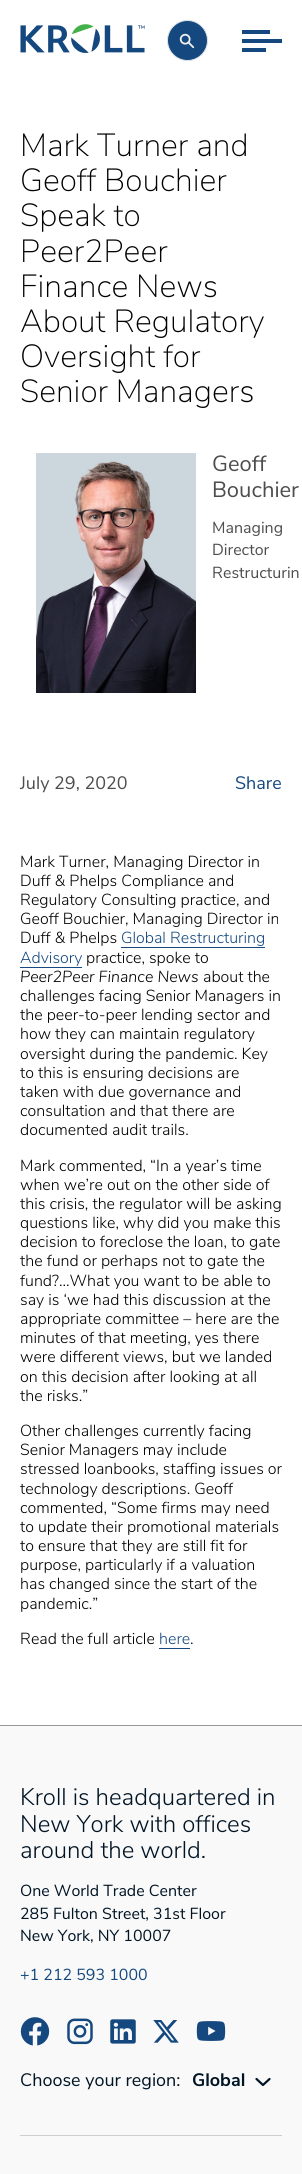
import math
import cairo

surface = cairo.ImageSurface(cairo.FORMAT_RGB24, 302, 2174)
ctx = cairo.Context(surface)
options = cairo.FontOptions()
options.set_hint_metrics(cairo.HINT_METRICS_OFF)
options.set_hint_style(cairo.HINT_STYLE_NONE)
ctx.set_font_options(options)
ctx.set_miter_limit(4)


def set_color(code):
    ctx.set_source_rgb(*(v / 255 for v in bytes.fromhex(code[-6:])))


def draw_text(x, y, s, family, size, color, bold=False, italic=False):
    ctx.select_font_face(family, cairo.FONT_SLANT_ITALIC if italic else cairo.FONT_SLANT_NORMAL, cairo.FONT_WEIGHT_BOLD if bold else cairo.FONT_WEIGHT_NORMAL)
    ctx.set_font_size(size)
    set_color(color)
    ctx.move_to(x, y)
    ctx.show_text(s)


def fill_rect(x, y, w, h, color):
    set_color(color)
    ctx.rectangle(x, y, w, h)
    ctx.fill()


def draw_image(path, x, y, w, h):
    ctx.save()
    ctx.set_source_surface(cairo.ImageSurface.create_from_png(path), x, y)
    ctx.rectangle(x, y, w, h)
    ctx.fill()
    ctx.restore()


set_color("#ffffff")
ctx.paint()
draw_image("assets/img1.png", 20, 24, 125, 29)
set_color("#14487f")
ctx.arc(187.5, 40.5, 20, 0, 2 * math.pi)
ctx.fill_preserve()
set_color("#dee2e6")
ctx.set_line_width(1)
ctx.stroke()
draw_image("assets/img2.png", 179, 33, 16, 16)
fill_rect(242, 30, 28, 4, "#14487f")
fill_rect(242, 39, 40, 4, "#14487f")
fill_rect(242, 48, 24, 4, "#14487f")
draw_text(20, 156, "Mark Turner and", "Nunito Sans ExtraLight", 32, "#000000")
draw_text(20, 191, "Geoff Bouchier", "Nunito Sans ExtraLight", 32, "#000000")
draw_text(20, 226, "Speak to", "Nunito Sans ExtraLight", 32, "#000000")
draw_text(20, 262, "Peer2Peer", "Nunito Sans ExtraLight", 32, "#000000")
draw_text(20, 297, "Finance News", "Nunito Sans ExtraLight", 32, "#000000")
draw_text(20, 332, "About Regulatory", "Nunito Sans ExtraLight", 32, "#000000")
draw_text(20, 367, "Oversight for", "Nunito Sans ExtraLight", 32, "#000000")
draw_text(20, 402, "Senior Managers", "Nunito Sans ExtraLight", 32, "#000000")
draw_image("assets/img3.png", 36, 453, 160, 240)
draw_text(212, 471, "Geoff", "Nunito Sans", 22, "#4d4d4f")
draw_text(212, 497, "Bouchier", "Nunito Sans", 22, "#4d4d4f")
draw_text(212, 533, "Managing", "Nunito Sans", 16, "#4d4d4f")
draw_text(212, 555, "Director", "Nunito Sans", 16, "#4d4d4f")
draw_text(212, 578, "Restructurin", "Nunito Sans", 16, "#4d4d4f")
draw_text(20, 789, "July 29, 2020", "Nunito Sans", 18, "#4d4d4f")
draw_text(235, 789, "Share", "Nunito Sans", 18, "#14487f")
draw_text(20, 867, "Mark Turner, Managing Director in", "Nunito Sans Light", 16, "#000000")
draw_text(20, 886, "Duff & Phelps Compliance and", "Nunito Sans Light", 16, "#000000")
draw_text(20, 905, "Regulatory Consulting practice, and", "Nunito Sans Light", 16, "#000000")
draw_text(20, 924, "Geoff Bouchier, Managing Director in", "Nunito Sans Light", 16, "#000000")
draw_text(20, 943, "Duff & Phelps", "Nunito Sans Light", 16, "#000000")
draw_text(121, 943, "Global Restructuring", "Nunito Sans Light", 16, "#14487f")
fill_rect(121, 947, 144, 1, "#14487f")
draw_text(20, 963, "Advisory", "Nunito Sans Light", 16, "#14487f")
fill_rect(20, 967, 62, 1, "#14487f")
draw_text(86, 963, "practice, spoke to", "Nunito Sans Light", 16, "#000000")
draw_text(20, 982, "Peer2Peer Finance News", "Nunito Sans Light", 16, "#000000", italic=True)
draw_text(203, 982, "about the", "Nunito Sans Light", 16, "#000000")
draw_text(20, 1001, "challenges facing Senior Managers in", "Nunito Sans Light", 16, "#000000")
draw_text(20, 1020, "the peer-to-peer lending sector and", "Nunito Sans Light", 16, "#000000")
draw_text(20, 1039, "how they can maintain regulatory", "Nunito Sans Light", 16, "#000000")
draw_text(20, 1059, "oversight during the pandemic. Key", "Nunito Sans Light", 16, "#000000")
draw_text(20, 1078, "to this is ensuring decisions are", "Nunito Sans Light", 16, "#000000")
draw_text(20, 1097, "taken with due governance and", "Nunito Sans Light", 16, "#000000")
draw_text(20, 1116, "consultation and that there are", "Nunito Sans Light", 16, "#000000")
draw_text(20, 1135, "documented audit trails.", "Nunito Sans Light", 16, "#000000")
draw_text(20, 1171, "Mark commented, “In a year’s time", "Nunito Sans Light", 16, "#000000")
draw_text(20, 1190, "when we’re out on the other side of", "Nunito Sans Light", 16, "#000000")
draw_text(20, 1209, "this crisis, the regulator will be asking", "Nunito Sans Light", 16, "#000000")
draw_text(20, 1228, "questions like, why did you make this", "Nunito Sans Light", 16, "#000000")
draw_text(20, 1247, "decision to foreclose the loan, to gate", "Nunito Sans Light", 16, "#000000")
draw_text(20, 1266, "the fund or perhaps not to gate the", "Nunito Sans Light", 16, "#000000")
draw_text(20, 1286, "fund?...What you want to be able to", "Nunito Sans Light", 16, "#000000")
draw_text(20, 1305, "say is ‘we had this discussion at the", "Nunito Sans Light", 16, "#000000")
draw_text(20, 1324, "appropriate committee – here are the", "Nunito Sans Light", 16, "#000000")
draw_text(20, 1343, "minutes of that meeting, yes there", "Nunito Sans Light", 16, "#000000")
draw_text(20, 1362, "were different views, but we landed", "Nunito Sans Light", 16, "#000000")
draw_text(20, 1382, "on this decision after looking at all", "Nunito Sans Light", 16, "#000000")
draw_text(20, 1401, "the risks.”", "Nunito Sans Light", 16, "#000000")
draw_text(20, 1436, "Other challenges currently facing", "Nunito Sans Light", 16, "#000000")
draw_text(20, 1455, "Senior Managers may include", "Nunito Sans Light", 16, "#000000")
draw_text(20, 1474, "stressed loanbooks, staffing issues or", "Nunito Sans Light", 16, "#000000")
draw_text(20, 1494, "technology descriptions. Geoff", "Nunito Sans Light", 16, "#000000")
draw_text(20, 1513, "commented, “Some firms may need", "Nunito Sans Light", 16, "#000000")
draw_text(20, 1532, "to update their promotional materials", "Nunito Sans Light", 16, "#000000")
draw_text(20, 1551, "to ensure that they are still fit for", "Nunito Sans Light", 16, "#000000")
draw_text(20, 1570, "purpose, particularly if a valuation", "Nunito Sans Light", 16, "#000000")
draw_text(20, 1589, "has changed since the start of the", "Nunito Sans Light", 16, "#000000")
draw_text(20, 1609, "pandemic.”", "Nunito Sans Light", 16, "#000000")
draw_text(20, 1644, "Read the full article", "Nunito Sans Light", 16, "#000000")
draw_text(159, 1644, "here", "Nunito Sans Light", 16, "#14487f")
fill_rect(159, 1648, 31, 1, "#14487f")
draw_text(190, 1644, ".", "Nunito Sans Light", 16, "#000000")
fill_rect(0, 1725, 302, 1, "#989898")
fill_rect(0, 1726, 302, 448, "#f9f9f9")
draw_text(20, 1805, "Kroll is headquartered in", "Nunito Sans Light", 24, "#001424")
draw_text(20, 1832, "New York with offices", "Nunito Sans Light", 24, "#001424")
draw_text(20, 1858, "around the world.", "Nunito Sans Light", 24, "#001424")
draw_text(20, 1896, "One World Trade Center", "Nunito Sans", 16, "#001424")
draw_text(20, 1919, "285 Fulton Street, 31st Floor", "Nunito Sans", 16, "#001424")
draw_text(20, 1941, "New York, NY 10007", "Nunito Sans", 16, "#001424")
draw_text(20, 1980, "+1 212 593 1000", "Nunito Sans", 16, "#14487f")
draw_image("assets/img4.png", 20, 2017, 30, 29)
draw_image("assets/img5.png", 67, 2018, 26, 27)
draw_image("assets/img6.png", 110, 2019, 26, 25)
draw_image("assets/img7.png", 153, 2020, 26, 23)
draw_image("assets/img8.png", 196, 2021, 30, 20)
draw_text(20, 2086, "Choose your region:", "Nunito Sans", 18, "#001424")
draw_text(192, 2086, "Global", "Nunito Sans", 18, "#001424", bold=True)
ctx.new_path()
ctx.move_to(256.5, 2079)
ctx.line_to(263, 2085)
ctx.line_to(269.5, 2079)
ctx.set_line_width(2.2)
ctx.set_line_cap(cairo.LINE_CAP_ROUND)
ctx.set_line_join(cairo.LINE_JOIN_ROUND)
ctx.stroke()
fill_rect(20, 2135, 262, 1, "#cececf")
surface.write_to_png("output.png")
